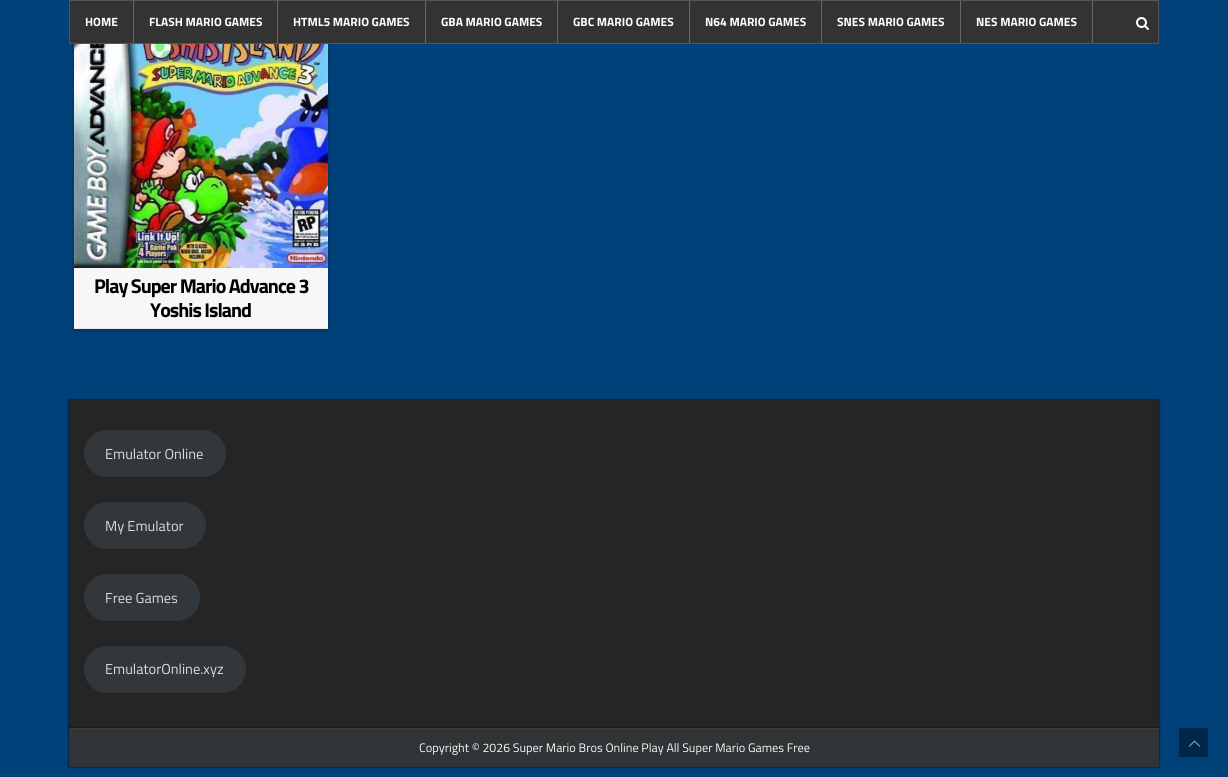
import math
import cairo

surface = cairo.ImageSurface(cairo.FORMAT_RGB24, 1228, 777)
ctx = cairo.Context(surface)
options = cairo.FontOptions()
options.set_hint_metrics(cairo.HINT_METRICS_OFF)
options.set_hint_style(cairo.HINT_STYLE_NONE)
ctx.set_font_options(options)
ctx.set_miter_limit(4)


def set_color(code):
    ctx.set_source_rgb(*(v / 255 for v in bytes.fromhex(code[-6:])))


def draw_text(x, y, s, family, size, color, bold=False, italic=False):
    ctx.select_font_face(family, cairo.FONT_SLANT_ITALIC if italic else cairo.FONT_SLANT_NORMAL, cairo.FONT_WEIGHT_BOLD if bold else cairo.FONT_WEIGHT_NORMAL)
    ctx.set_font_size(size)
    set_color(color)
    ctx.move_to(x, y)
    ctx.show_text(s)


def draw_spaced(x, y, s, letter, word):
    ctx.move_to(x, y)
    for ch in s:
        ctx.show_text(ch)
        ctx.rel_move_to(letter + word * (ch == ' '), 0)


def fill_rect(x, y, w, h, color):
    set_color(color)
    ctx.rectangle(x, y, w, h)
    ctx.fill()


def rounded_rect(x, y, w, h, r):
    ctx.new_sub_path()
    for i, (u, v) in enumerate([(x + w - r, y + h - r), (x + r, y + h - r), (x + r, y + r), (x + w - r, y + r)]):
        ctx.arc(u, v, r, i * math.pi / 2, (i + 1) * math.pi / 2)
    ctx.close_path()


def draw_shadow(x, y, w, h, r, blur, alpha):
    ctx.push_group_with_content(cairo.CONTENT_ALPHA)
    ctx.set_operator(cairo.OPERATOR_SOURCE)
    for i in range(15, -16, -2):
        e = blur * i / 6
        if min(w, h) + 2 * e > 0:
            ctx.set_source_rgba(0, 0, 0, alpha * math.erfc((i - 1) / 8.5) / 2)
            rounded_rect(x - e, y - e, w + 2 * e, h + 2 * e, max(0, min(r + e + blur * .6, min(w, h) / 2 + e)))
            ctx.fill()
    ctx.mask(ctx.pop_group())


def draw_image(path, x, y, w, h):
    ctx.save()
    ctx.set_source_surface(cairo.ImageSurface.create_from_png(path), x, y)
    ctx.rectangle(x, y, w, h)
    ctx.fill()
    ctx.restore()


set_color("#00417a")
ctx.paint()
set_color("#000000")
draw_shadow(74, 9, 254, 321, 0, 2, 0.3)
set_color("#333333")
ctx.rectangle(69.5, 0.5, 1089, 43)
ctx.fill_preserve()
set_color("#555555")
ctx.set_line_width(1)
ctx.stroke()
fill_rect(133, 1, 1, 42, "#666666")
draw_text(85, 26, "HOME", "Titillium Web", 12, "#ffffff", bold=True)
fill_rect(277, 1, 1, 42, "#666666")
draw_text(149, 26, "FLASH MARIO GAMES", "Titillium Web", 12, "#ffffff", bold=True)
fill_rect(425, 1, 1, 42, "#666666")
draw_text(293, 26, "HTML5 MARIO GAMES", "Titillium Web", 12, "#ffffff", bold=True)
fill_rect(557, 1, 1, 42, "#666666")
draw_text(441, 26, "GBA MARIO GAMES", "Titillium Web", 12, "#ffffff", bold=True)
fill_rect(689, 1, 1, 42, "#666666")
draw_text(573, 26, "GBC MARIO GAMES", "Titillium Web", 12, "#ffffff", bold=True)
fill_rect(821, 1, 1, 42, "#666666")
draw_text(705, 26, "N64 MARIO GAMES", "Titillium Web", 12, "#ffffff", bold=True)
fill_rect(960, 1, 1, 42, "#666666")
draw_text(837, 26, "SNES MARIO GAMES", "Titillium Web", 12, "#ffffff", bold=True)
fill_rect(1092, 1, 1, 42, "#666666")
draw_text(976, 26, "NES MARIO GAMES", "Titillium Web", 12, "#ffffff", bold=True)
draw_image("assets/img1.png", 1136, 17, 13, 13)
fill_rect(74, 44, 254, 284, "#f7f7f7")
draw_image("assets/img2.png", 74, 44, 254, 224)
fill_rect(74, 328, 254, 1, "#eaeaea")
ctx.set_font_size(20)
set_color("#000000")
draw_spaced(94, 293, "Play Super Mario Advance 3", -1, 0)
draw_spaced(150, 317, "Yoshis Island", -1, 0)
set_color("#000000")
draw_shadow(69, 400, 1090, 328, 0, 1, 1)
fill_rect(69, 400, 1090, 328, "#252525")
set_color("#32373c")
rounded_rect(84, 430, 142, 47, 23.5)
ctx.fill()
draw_text(105, 459, "Emulator Online", "Titillium Web", 14.5, "#dbdbdb")
set_color("#32373c")
rounded_rect(84, 502, 122, 47, 23.5)
ctx.fill()
draw_text(105, 531, "My Emulator", "Titillium Web", 14.5, "#dbdbdb")
set_color("#32373c")
rounded_rect(84, 574, 116, 47, 23.5)
ctx.fill()
draw_text(105, 603, "Free Games", "Titillium Web", 14.5, "#dbdbdb")
set_color("#32373c")
rounded_rect(84, 646, 162, 47, 23.5)
ctx.fill()
draw_text(105, 674, "EmulatorOnline.xyz", "Titillium Web", 14.5, "#dbdbdb")
set_color("#000000")
draw_shadow(69, 728, 1090, 39, 0, 1, 1)
fill_rect(69, 729, 1090, 38, "#303436")
fill_rect(69, 728, 1090, 1, "#3d3d3d")
draw_text(419, 752, "Copyright © 2026 Super Mario Bros Online Play All Super Mario Games Free", "Titillium Web", 12.35, "#ecfff1")
fill_rect(1179, 728, 29, 29, "#002749")
draw_image("assets/img3.png", 1189, 740, 11, 7)
surface.write_to_png("output.png")
